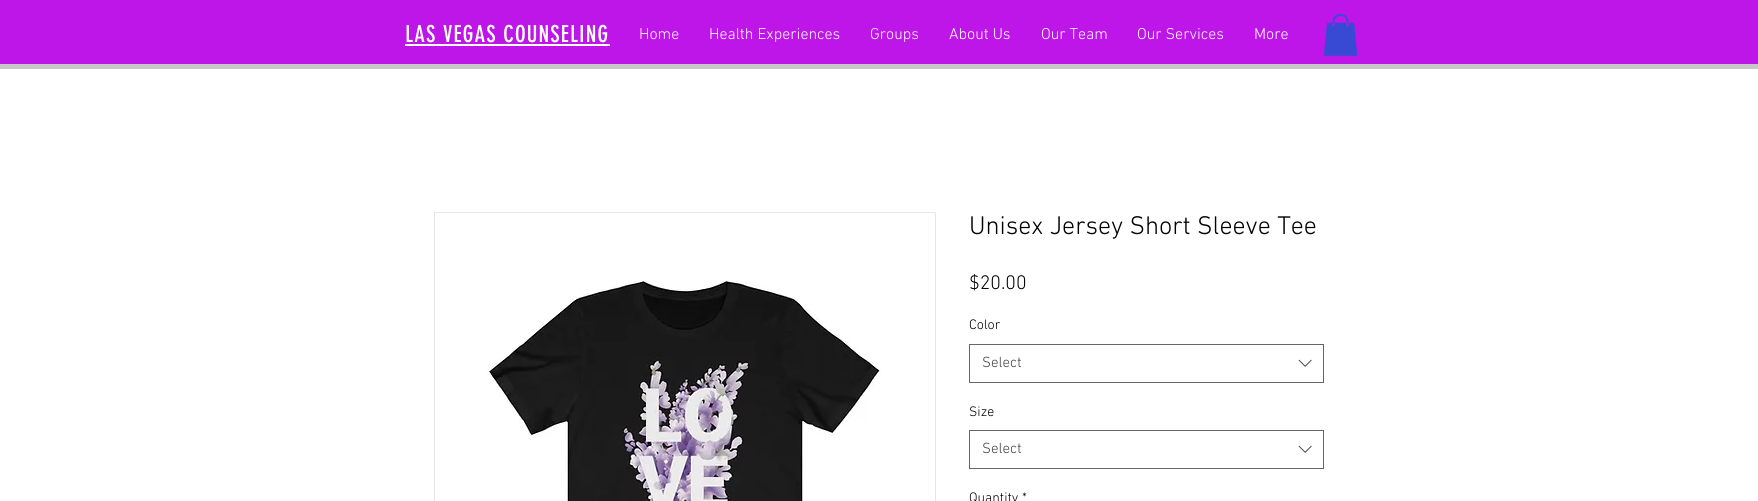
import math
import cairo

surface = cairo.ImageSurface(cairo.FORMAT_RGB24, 1758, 501)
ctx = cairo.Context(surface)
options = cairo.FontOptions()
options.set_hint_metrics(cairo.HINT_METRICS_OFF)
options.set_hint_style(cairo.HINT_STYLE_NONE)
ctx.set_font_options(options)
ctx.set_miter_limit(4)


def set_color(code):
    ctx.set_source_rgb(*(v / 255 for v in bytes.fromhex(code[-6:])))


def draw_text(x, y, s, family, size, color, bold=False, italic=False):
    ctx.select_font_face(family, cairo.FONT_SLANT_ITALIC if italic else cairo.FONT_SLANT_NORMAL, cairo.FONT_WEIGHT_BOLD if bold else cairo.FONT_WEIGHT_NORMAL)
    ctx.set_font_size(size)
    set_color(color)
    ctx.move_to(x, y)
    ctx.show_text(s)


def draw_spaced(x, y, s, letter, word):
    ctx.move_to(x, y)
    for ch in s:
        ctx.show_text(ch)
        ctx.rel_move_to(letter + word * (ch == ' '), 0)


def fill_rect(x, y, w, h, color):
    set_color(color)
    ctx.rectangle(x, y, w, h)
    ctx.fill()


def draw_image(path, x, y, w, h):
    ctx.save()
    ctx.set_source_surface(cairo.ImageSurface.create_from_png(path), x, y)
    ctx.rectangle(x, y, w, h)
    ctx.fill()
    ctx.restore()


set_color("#ffffff")
ctx.paint()
fill_rect(0, 0, 1758, 64, "#be15e8")
fill_rect(0, 64, 1758, 5, "#c7c7c7")
ctx.select_font_face("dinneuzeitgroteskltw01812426")
ctx.set_font_size(23)
set_color("#ffffff")
draw_spaced(405, 42, "LAS VEGAS COUNSELING", 1.1, 0)
fill_rect(405, 44, 205, 2, "#ffffff")
draw_text(639, 39, "Home", "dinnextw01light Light", 16, "#ffffff")
draw_text(709, 39, "Health Experiences", "dinnextw01light Light", 16, "#ffffff")
draw_text(870, 39, "Groups", "dinnextw01light Light", 16, "#ffffff")
draw_text(949, 39, "About Us", "dinnextw01light Light", 16, "#ffffff")
draw_text(1041, 39, "Our Team", "dinnextw01light Light", 16, "#ffffff")
draw_text(1137, 39, "Our Services", "dinnextw01light Light", 16, "#ffffff")
draw_text(1254, 39, "More", "dinnextw01light Light", 16, "#ffffff")
draw_image("assets/img1.png", 1323, 14, 35, 42)
ctx.rectangle(434.5, 212.5, 501, 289)
set_color("#e8e6e6")
ctx.set_line_width(1)
ctx.stroke()
draw_image("assets/img2.png", 487, 281, 394, 220)
draw_text(969, 234, "Unisex Jersey Short Sleeve Tee", "dinnextw01light Light", 26, "#000000")
draw_text(969, 289, "$20.00", "dinnextw01light Light", 20, "#000000")
draw_text(969, 329, "Color", "dinnextw01light Light", 14, "#000000")
ctx.rectangle(969.5, 344.5, 354, 38)
set_color("#666666")
ctx.stroke()
draw_text(982, 367, "Select", "dinnextw01light Light", 15, "#444444")
draw_image("assets/img3.png", 1298, 359, 14, 8)
draw_text(969, 416, "Size", "dinnextw01light Light", 14, "#000000")
ctx.rectangle(969.5, 430.5, 354, 38)
set_color("#666666")
ctx.stroke()
draw_text(982, 453, "Select", "dinnextw01light Light", 15, "#444444")
draw_image("assets/img3.png", 1298, 445, 14, 8)
draw_text(969, 502, "Quantity", "dinnextw01light Light", 14, "#000000")
draw_text(1022, 502, "*", "dinnextw01light Light", 14, "#000000")
surface.write_to_png("output.png")
